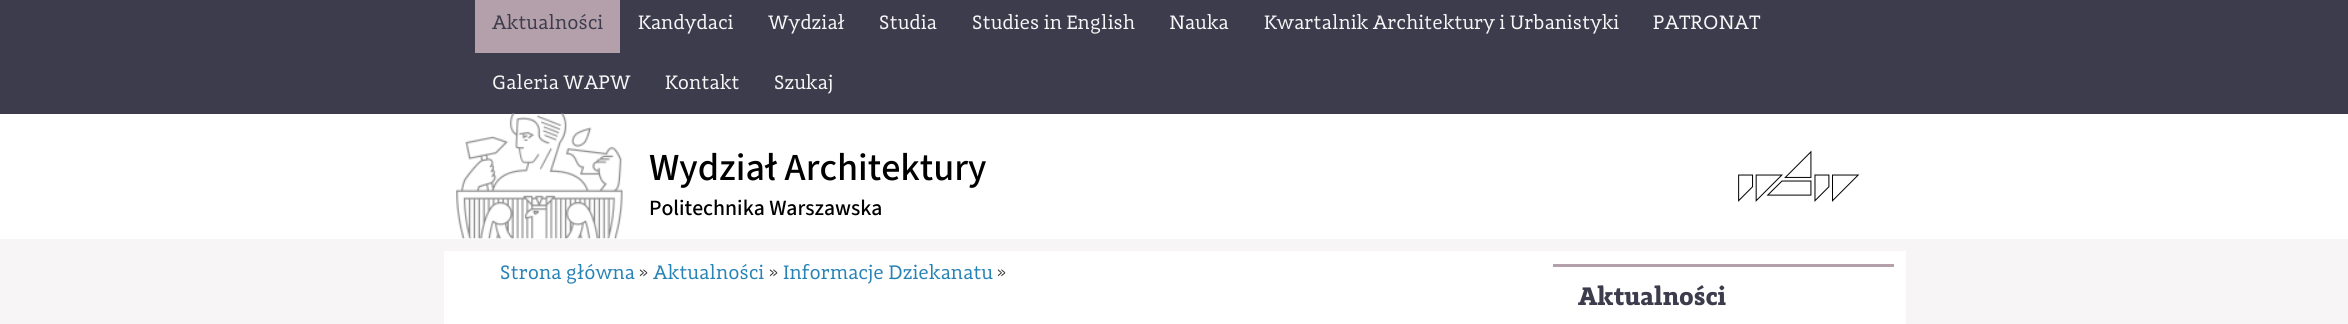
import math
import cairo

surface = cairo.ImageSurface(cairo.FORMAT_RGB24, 2348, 324)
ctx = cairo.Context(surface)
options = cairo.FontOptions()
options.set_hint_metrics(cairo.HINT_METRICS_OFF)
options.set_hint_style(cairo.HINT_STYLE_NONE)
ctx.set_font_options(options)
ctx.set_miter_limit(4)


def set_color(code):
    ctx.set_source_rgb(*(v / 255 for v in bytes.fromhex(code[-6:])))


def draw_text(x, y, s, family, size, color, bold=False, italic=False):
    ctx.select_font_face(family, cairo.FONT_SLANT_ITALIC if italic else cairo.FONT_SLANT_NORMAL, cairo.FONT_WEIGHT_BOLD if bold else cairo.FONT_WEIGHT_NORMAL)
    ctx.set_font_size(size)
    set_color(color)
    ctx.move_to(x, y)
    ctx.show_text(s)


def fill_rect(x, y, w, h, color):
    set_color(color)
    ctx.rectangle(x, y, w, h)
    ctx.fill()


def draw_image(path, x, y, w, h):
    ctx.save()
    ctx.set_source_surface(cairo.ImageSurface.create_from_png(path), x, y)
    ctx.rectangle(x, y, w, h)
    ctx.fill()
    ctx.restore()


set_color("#f7f5f6")
ctx.paint()
fill_rect(0, 0, 2348, 114, "#3c3c4c")
fill_rect(475, 0, 145, 53, "#b4a0aa")
draw_text(492, 29, "Aktualności", "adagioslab", 20.1, "#3c3c4c")
draw_text(638, 29, "Kandydaci", "adagioslab", 20.1, "#f7f5f6")
draw_text(768, 29, "Wydział", "adagioslab", 20.1, "#f7f5f6")
draw_text(879, 29, "Studia", "adagioslab", 20.1, "#f7f5f6")
draw_text(972, 29, "Studies in English", "adagioslab", 20.1, "#f7f5f6")
draw_text(1169, 29, "Nauka", "adagioslab", 20.1, "#f7f5f6")
draw_text(1264, 29, "Kwartalnik Architektury i Urbanistyki", "adagioslab", 20.1, "#f7f5f6")
draw_text(1653, 29, "PATRONAT", "adagioslab", 20.1, "#f7f5f6")
draw_text(492, 89, "Galeria WAPW", "adagioslab", 20.1, "#f7f5f6")
draw_text(665, 89, "Kontakt", "adagioslab", 20.1, "#f7f5f6")
draw_text(774, 89, "Szukaj", "adagioslab", 20.1, "#f7f5f6")
fill_rect(0, 114, 2348, 125, "#ffffff")
draw_image("assets/img1.png", 456, 113, 167, 126)
draw_text(649, 180, "Wydział Architektury", "Source Sans 3 Medium", 38.25, "#000000")
draw_text(649, 215, "Politechnika Warszawska", "Source Sans 3 Medium", 21.75, "#000000")
draw_image("assets/img2.png", 1738, 150, 122, 52)
fill_rect(444, 251, 1462, 73, "#ffffff")
draw_text(500, 279, "Strona główna", "adagioslab", 20.1, "#2782b6")
draw_text(639, 277, "»", "adagioslab", 16, "#333333")
draw_text(653, 279, "Aktualności", "adagioslab", 20.1, "#2782b6")
draw_text(769, 277, "»", "adagioslab", 16, "#333333")
draw_text(783, 279, "Informacje Dziekanatu", "adagioslab", 20.1, "#2782b6")
draw_text(997, 277, "»", "adagioslab", 16, "#333333")
fill_rect(1553, 264, 341, 3, "#b4a0aa")
draw_text(1578, 305, "Aktualności", "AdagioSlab", 26.25, "#3c3c4c", bold=True)
surface.write_to_png("output.png")
